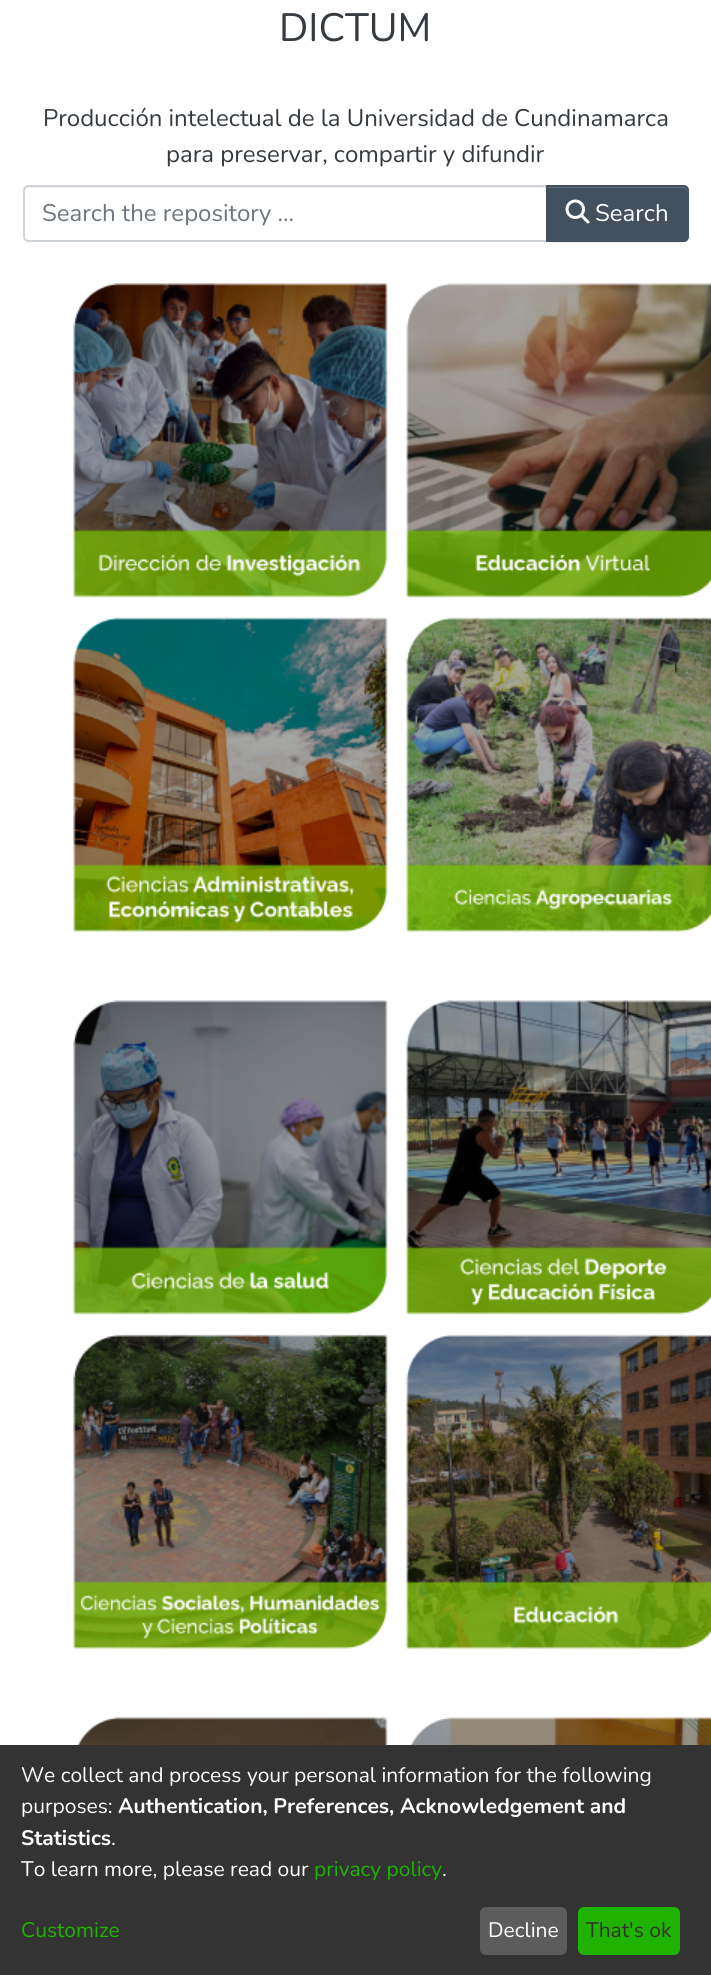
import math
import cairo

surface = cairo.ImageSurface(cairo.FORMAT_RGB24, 711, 1975)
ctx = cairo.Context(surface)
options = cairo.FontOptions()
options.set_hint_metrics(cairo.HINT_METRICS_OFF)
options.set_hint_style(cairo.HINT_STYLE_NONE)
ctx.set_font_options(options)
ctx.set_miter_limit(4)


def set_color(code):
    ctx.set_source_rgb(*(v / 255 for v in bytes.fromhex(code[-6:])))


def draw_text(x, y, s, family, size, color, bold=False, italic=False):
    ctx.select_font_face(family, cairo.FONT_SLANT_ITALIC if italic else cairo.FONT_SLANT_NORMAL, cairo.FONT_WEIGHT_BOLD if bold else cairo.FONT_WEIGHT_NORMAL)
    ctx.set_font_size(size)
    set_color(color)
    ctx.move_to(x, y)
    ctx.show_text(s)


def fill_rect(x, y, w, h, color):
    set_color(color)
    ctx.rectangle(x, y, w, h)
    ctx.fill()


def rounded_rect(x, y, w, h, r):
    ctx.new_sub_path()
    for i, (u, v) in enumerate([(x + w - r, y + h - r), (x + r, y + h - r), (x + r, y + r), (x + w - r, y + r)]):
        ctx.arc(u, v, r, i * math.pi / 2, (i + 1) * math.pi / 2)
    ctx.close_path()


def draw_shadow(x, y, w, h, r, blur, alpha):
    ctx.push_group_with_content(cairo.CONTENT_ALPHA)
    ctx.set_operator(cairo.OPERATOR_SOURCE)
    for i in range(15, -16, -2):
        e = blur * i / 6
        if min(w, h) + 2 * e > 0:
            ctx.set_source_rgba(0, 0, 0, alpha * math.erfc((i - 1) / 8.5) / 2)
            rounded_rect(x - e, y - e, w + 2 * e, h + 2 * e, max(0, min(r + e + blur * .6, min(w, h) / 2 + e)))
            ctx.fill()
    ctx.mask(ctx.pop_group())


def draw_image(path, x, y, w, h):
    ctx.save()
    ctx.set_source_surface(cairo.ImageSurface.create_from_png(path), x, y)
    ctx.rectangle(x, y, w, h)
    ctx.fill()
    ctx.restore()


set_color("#ffffff")
ctx.paint()
draw_text(279, 41, "DICTUM", "Nunito", 39.5, "#343a40")
draw_text(43, 126, "Producción intelectual de la Universidad de Cundinamarca", "Nunito", 24, "#343a40")
draw_text(166, 162, "para preservar, compartir y difundir", "Nunito", 24, "#343a40")
set_color("#ececec")
ctx.new_path()
ctx.move_to(28, 188)
ctx.line_to(546, 188)
ctx.line_to(546, 186)
ctx.line_to(29, 186)
ctx.curve_to(26, 186, 24, 188, 24, 191)
ctx.line_to(24, 192)
ctx.curve_to(24, 190, 26, 188, 28, 188)
ctx.close_path()
ctx.fill()
ctx.new_path()
ctx.move_to(29, 186)
ctx.line_to(547, 186)
ctx.line_to(547, 241)
ctx.line_to(29, 241)
ctx.curve_to(26, 241, 24, 239, 24, 236)
ctx.line_to(24, 191)
ctx.curve_to(24, 188, 26, 186, 29, 186)
ctx.close_path()
set_color("#ced4da")
ctx.stroke()
draw_text(42, 221, "Search the repository ...", "Nunito", 24, "#6c757d")
set_color("#000000")
draw_shadow(546, 186, 143, 57, 6, 1, 0.07)
set_color("#43515f")
ctx.new_path()
ctx.move_to(546, 185)
ctx.line_to(683, 185)
ctx.curve_to(686.5, 185, 689, 187.5, 689, 191)
ctx.line_to(689, 236)
ctx.curve_to(689, 239.5, 686.5, 242, 683, 242)
ctx.line_to(546, 242)
ctx.close_path()
ctx.fill()
set_color("#5f6b77")
ctx.new_path()
ctx.move_to(548, 188)
ctx.line_to(682, 188)
ctx.curve_to(685, 188, 687, 190, 687, 192)
ctx.line_to(687, 191)
ctx.curve_to(687, 188, 685, 186, 682, 186)
ctx.line_to(548, 186)
ctx.close_path()
ctx.fill()
ctx.new_path()
ctx.move_to(547, 186)
ctx.line_to(683, 186)
ctx.curve_to(686, 186, 688, 188, 688, 191)
ctx.line_to(688, 236)
ctx.curve_to(688, 239, 686, 241, 683, 241)
ctx.line_to(547, 241)
ctx.close_path()
set_color("#43515f")
ctx.stroke()
draw_image("assets/img1.png", 565, 199, 25, 25)
draw_text(595, 221, "Search", "Nunito", 24, "#ffffff")
draw_image("assets/img2.png", 73, 283, 315, 315)
draw_image("assets/img3.png", 406, 283, 305, 315)
draw_image("assets/img4.png", 73, 617, 315, 315)
draw_image("assets/img5.png", 406, 617, 305, 315)
draw_image("assets/img6.png", 73, 1000, 315, 315)
draw_image("assets/img7.png", 406, 1000, 305, 315)
draw_image("assets/img8.png", 73, 1334, 315, 315)
draw_image("assets/img9.png", 406, 1334, 305, 315)
draw_image("assets/img10.png", 77, 1717, 311, 28)
draw_image("assets/img11.png", 410, 1717, 301, 28)
fill_rect(0, 1745, 711, 230, "#333333")
draw_text(21, 1782, "We collect and process your personal information for the following", "Nunito", 21, "#ffffff")
draw_text(21, 1813, "purposes:", "Nunito", 21, "#ffffff")
draw_text(118, 1813, "Authentication, Preferences, Acknowledgement and", "Nunito", 21, "#ffffff", bold=True)
draw_text(21, 1845, "Statistics", "Nunito", 21, "#ffffff", bold=True)
draw_text(111, 1845, ".", "Nunito", 21, "#ffffff")
draw_text(21, 1876, "To learn more, please read our", "Nunito", 21, "#ffffff")
draw_text(314, 1876, "privacy policy", "Nunito", 21, "#1fb300")
draw_text(442, 1876, ".", "Nunito", 21, "#ffffff")
draw_text(21, 1937, "Customize", "Nunito", 21, "#1fb300")
set_color("#5c5c5c")
rounded_rect(480, 1907, 87, 48, 6)
ctx.fill()
draw_text(488, 1937, "Decline", "Nunito", 21, "#ffffff")
set_color("#1fb300")
rounded_rect(578, 1907, 102, 48, 6)
ctx.fill()
draw_text(586, 1937, "That's ok", "Nunito", 21, "#333333")
surface.write_to_png("output.png")
